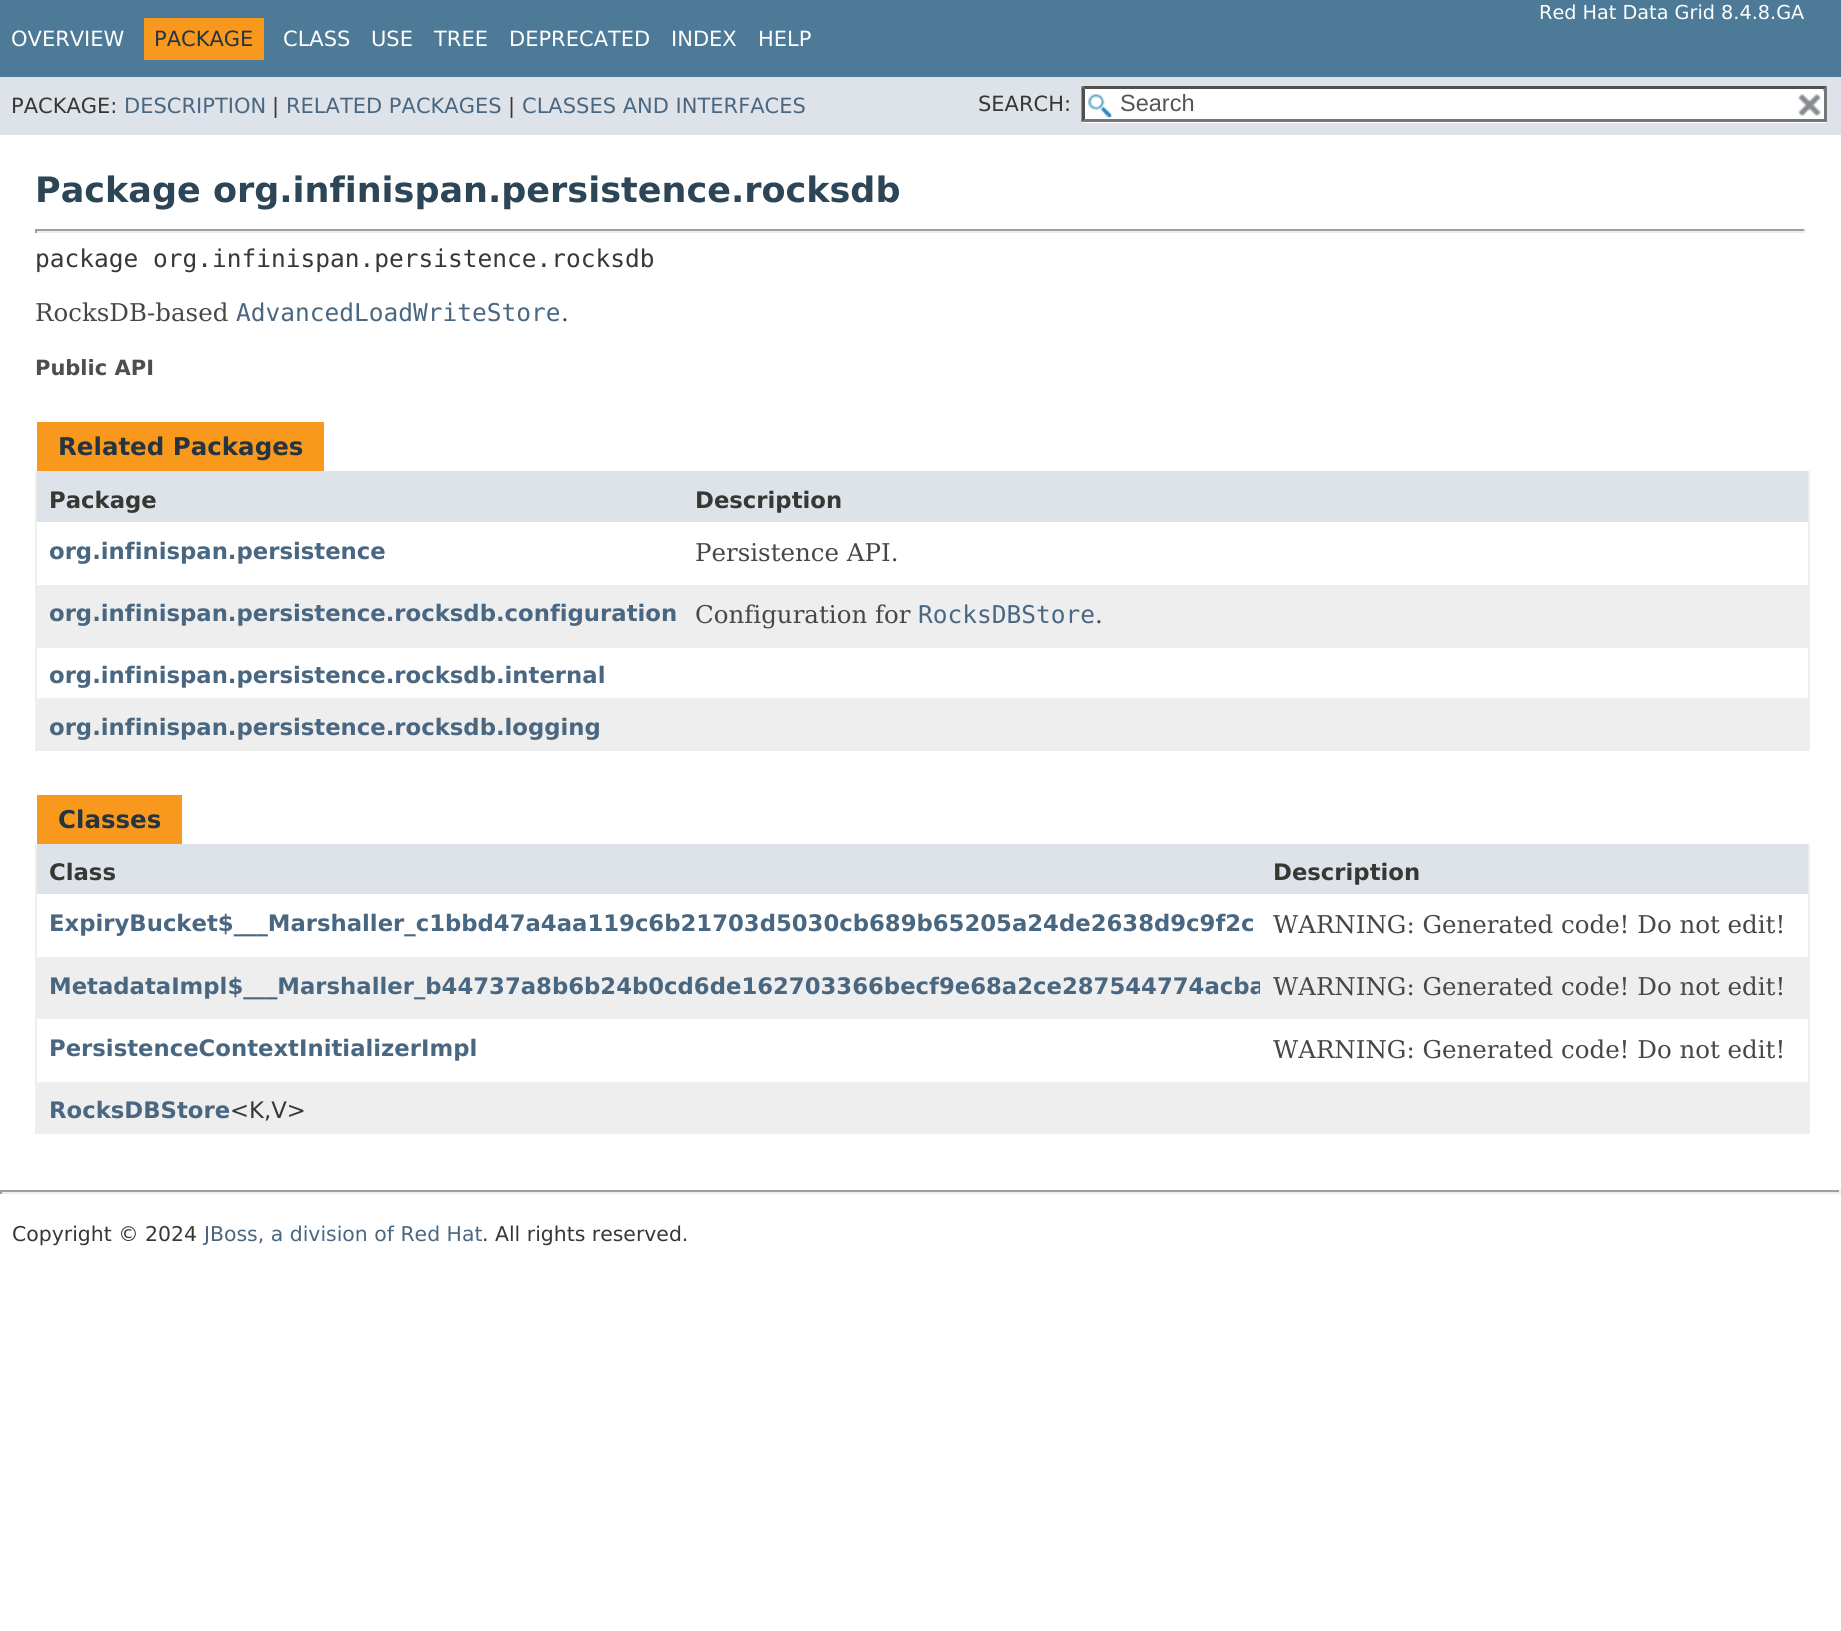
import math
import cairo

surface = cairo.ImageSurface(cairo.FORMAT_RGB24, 1841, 1631)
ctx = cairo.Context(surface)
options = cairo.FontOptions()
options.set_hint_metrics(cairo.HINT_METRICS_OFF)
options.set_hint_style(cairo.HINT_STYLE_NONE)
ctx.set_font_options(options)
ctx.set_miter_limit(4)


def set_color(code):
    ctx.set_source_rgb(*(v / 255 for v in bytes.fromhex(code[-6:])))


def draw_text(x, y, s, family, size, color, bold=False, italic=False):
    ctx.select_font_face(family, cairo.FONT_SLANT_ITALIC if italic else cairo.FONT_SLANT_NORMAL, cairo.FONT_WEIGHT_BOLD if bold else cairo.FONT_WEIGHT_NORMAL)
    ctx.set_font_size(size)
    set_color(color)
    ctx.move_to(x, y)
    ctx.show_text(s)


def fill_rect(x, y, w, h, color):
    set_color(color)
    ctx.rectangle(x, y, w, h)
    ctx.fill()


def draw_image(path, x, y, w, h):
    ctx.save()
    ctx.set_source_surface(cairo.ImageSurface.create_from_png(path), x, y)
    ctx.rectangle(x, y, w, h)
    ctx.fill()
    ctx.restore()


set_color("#ffffff")
ctx.paint()
fill_rect(0, 0, 1841, 77, "#4d7a97")
draw_text(1539, 19, "Red Hat Data Grid 8.4.8.GA", "DejaVu Sans", 19.25, "#ffffff")
draw_text(11, 46, "OVERVIEW", "DejaVu Sans", 21, "#ffffff")
fill_rect(144, 18, 120, 42, "#f8981d")
draw_text(154, 46, "PACKAGE", "DejaVu Sans", 21, "#253441")
draw_text(283, 46, "CLASS", "DejaVu Sans", 21, "#ffffff")
draw_text(371, 46, "USE", "DejaVu Sans", 21, "#ffffff")
draw_text(434, 46, "TREE", "DejaVu Sans", 21, "#ffffff")
draw_text(509, 46, "DEPRECATED", "DejaVu Sans", 21, "#ffffff")
draw_text(671, 46, "INDEX", "DejaVu Sans", 21, "#ffffff")
draw_text(758, 46, "HELP", "DejaVu Sans", 21, "#ffffff")
fill_rect(0, 77, 1841, 58, "#dee3e9")
draw_text(11, 113, "PACKAGE:", "DejaVu Sans", 21, "#353833")
draw_text(124, 113, "DESCRIPTION", "DejaVu Sans", 21, "#4a6782")
draw_text(272, 113, "|", "DejaVu Sans", 21, "#353833")
draw_text(286, 113, "RELATED PACKAGES", "DejaVu Sans", 21, "#4a6782")
draw_text(508, 113, "|", "DejaVu Sans", 21, "#353833")
draw_text(522, 113, "CLASSES AND INTERFACES", "DejaVu Sans", 21, "#4a6782")
draw_text(978, 111, "SEARCH:", "DejaVu Sans", 21, "#353833")
fill_rect(1082, 86, 745, 37, "#ffffff")
draw_image("assets/img1.png", 1088, 94, 24, 24)
set_color("#4f4f4f")
ctx.new_path()
ctx.move_to(1082, 86)
ctx.line_to(1827, 86)
ctx.line_to(1824, 89)
ctx.line_to(1085, 89)
ctx.close_path()
ctx.fill()
set_color("#767676")
ctx.new_path()
ctx.move_to(1827, 86)
ctx.line_to(1827, 122.5)
ctx.line_to(1823.5, 119)
ctx.line_to(1823.5, 89)
ctx.close_path()
ctx.fill()
ctx.new_path()
ctx.move_to(1827, 122)
ctx.line_to(1082, 122)
ctx.line_to(1085, 119)
ctx.line_to(1824, 119)
ctx.close_path()
ctx.fill()
set_color("#4f4f4f")
ctx.new_path()
ctx.move_to(1081.5, 122.5)
ctx.line_to(1081.5, 86)
ctx.line_to(1085, 89)
ctx.line_to(1085, 119)
ctx.close_path()
ctx.fill()
draw_text(1120, 111, "Search", "Liberation Sans", 23.5, "#545454")
fill_rect(1823, 91, 1, 28, "#ffffff")
draw_image("assets/img2.png", 1798, 94, 23, 22)
draw_text(35, 202, "Package org.infinispan.persistence.rocksdb", "DejaVu Sans", 35, "#2c4557", bold=True)
fill_rect(35, 229, 1771, 2, "#9f9f9f")
fill_rect(1804, 229, 2, 4, "#eeeeee")
fill_rect(35, 231, 1771, 2, "#eeeeee")
fill_rect(35, 229, 2, 4, "#9f9f9f")
draw_text(35, 267, "package org.infinispan.persistence.rocksdb", "DejaVu Sans Mono", 24.5, "#353833")
draw_text(35, 321, "RocksDB-based", "DejaVu Serif", 24.5, "#474747")
draw_text(236, 321, "AdvancedLoadWriteStore", "DejaVu Sans Mono", 24.5, "#4a6782")
draw_text(561, 321, ".", "DejaVu Serif", 24.5, "#474747")
draw_text(35, 375, "Public API", "DejaVu Sans", 21, "#4e4e4e", bold=True)
fill_rect(37, 422, 287, 49, "#f8981d")
draw_text(58, 455, "Related Packages", "DejaVu Sans", 24.5, "#253441", bold=True)
fill_rect(1808, 471, 2, 280, "#eeeeee")
fill_rect(35, 749, 1775, 2, "#eeeeee")
fill_rect(35, 471, 2, 280, "#eeeeee")
fill_rect(37, 471, 1771, 51, "#dee3e9")
draw_text(49, 508, "Package", "DejaVu Sans", 22.75, "#353833", bold=True)
draw_text(695, 508, "Description", "DejaVu Sans", 22.75, "#353833", bold=True)
draw_text(49, 559, "org.infinispan.persistence", "DejaVu Sans", 22.75, "#4a6782", bold=True)
draw_text(695, 561, "Persistence API.", "DejaVu Serif", 24.5, "#474747")
fill_rect(37, 585, 1771, 63, "#eeeeef")
draw_text(49, 621, "org.infinispan.persistence.rocksdb.configuration", "DejaVu Sans", 22.75, "#4a6782", bold=True)
draw_text(695, 623, "Configuration for", "DejaVu Serif", 24.5, "#474747")
draw_text(918, 623, "RocksDBStore", "DejaVu Sans Mono", 24.5, "#4a6782")
draw_text(1095, 623, ".", "DejaVu Serif", 24.5, "#474747")
draw_text(49, 683, "org.infinispan.persistence.rocksdb.internal", "DejaVu Sans", 22.75, "#4a6782", bold=True)
fill_rect(37, 698, 1771, 51, "#eeeeef")
draw_text(49, 735, "org.infinispan.persistence.rocksdb.logging", "DejaVu Sans", 22.75, "#4a6782", bold=True)
fill_rect(37, 795, 145, 49, "#f8981d")
draw_text(58, 828, "Classes", "DejaVu Sans", 24.5, "#253441", bold=True)
fill_rect(1808, 844, 2, 290, "#eeeeee")
fill_rect(35, 1132, 1775, 2, "#eeeeee")
fill_rect(35, 844, 2, 290, "#eeeeee")
fill_rect(37, 844, 1771, 50, "#dee3e9")
draw_text(49, 880, "Class", "DejaVu Sans", 22.75, "#353833", bold=True)
draw_text(1273, 880, "Description", "DejaVu Sans", 22.75, "#353833", bold=True)
draw_text(49, 931, "ExpiryBucket$___Marshaller_c1bbd47a4aa119c6b21703d5030cb689b65205a24de2638d9c9f2c", "DejaVu Sans", 22.75, "#4a6782", bold=True)
draw_text(1273, 933, "WARNING: Generated code! Do not edit!", "DejaVu Serif", 24.5, "#474747")
fill_rect(37, 957, 1771, 62, "#eeeeef")
ctx.save()
ctx.rectangle(37, 957, 1223, 62)
ctx.clip()
draw_text(49, 994, "MetadataImpl$___Marshaller_b44737a8b6b24b0cd6de162703366becf9e68a2ce287544774acba", "DejaVu Sans", 22.75, "#4a6782", bold=True)
ctx.restore()
draw_text(1273, 995, "WARNING: Generated code! Do not edit!", "DejaVu Serif", 24.5, "#474747")
draw_text(49, 1056, "PersistenceContextInitializerImpl", "DejaVu Sans", 22.75, "#4a6782", bold=True)
draw_text(1273, 1058, "WARNING: Generated code! Do not edit!", "DejaVu Serif", 24.5, "#474747")
fill_rect(37, 1082, 1771, 50, "#eeeeef")
draw_text(49, 1118, "RocksDBStore", "DejaVu Sans", 22.75, "#4a6782", bold=True)
draw_text(230, 1118, "<K,V>", "DejaVu Sans", 22.75, "#353833")
fill_rect(0, 1190, 1841, 2, "#9f9f9f")
fill_rect(1839, 1190, 2, 4, "#eeeeee")
fill_rect(0, 1192, 1841, 2, "#eeeeee")
fill_rect(0, 1190, 2, 4, "#9f9f9f")
draw_text(12, 1241, "Copyright © 2024", "DejaVu Sans", 20.4, "#353833")
draw_text(204, 1241, "JBoss, a division of Red Hat", "DejaVu Sans", 20.4, "#4a6782")
draw_text(482, 1241, ". All rights reserved.", "DejaVu Sans", 20.4, "#353833")
surface.write_to_png("output.png")
